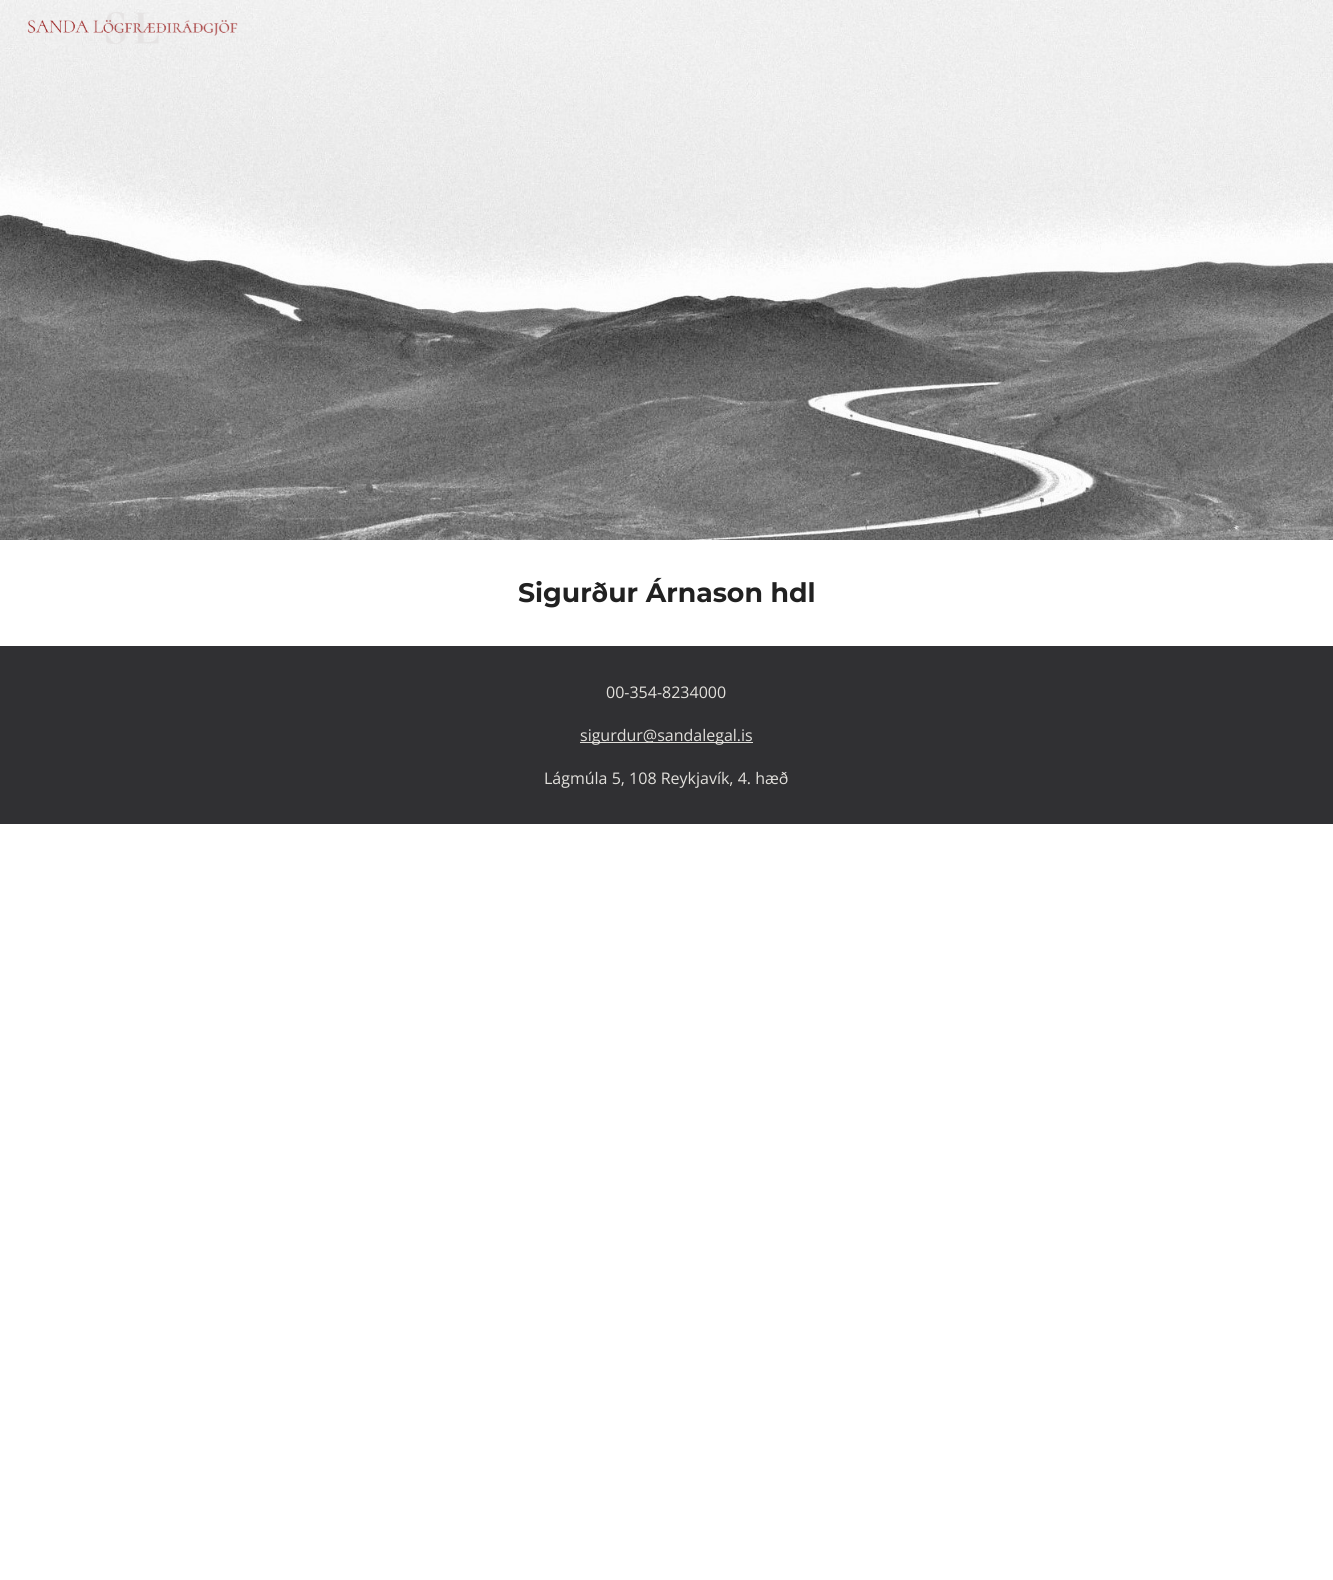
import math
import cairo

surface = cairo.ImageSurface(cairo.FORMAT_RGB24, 1333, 1580)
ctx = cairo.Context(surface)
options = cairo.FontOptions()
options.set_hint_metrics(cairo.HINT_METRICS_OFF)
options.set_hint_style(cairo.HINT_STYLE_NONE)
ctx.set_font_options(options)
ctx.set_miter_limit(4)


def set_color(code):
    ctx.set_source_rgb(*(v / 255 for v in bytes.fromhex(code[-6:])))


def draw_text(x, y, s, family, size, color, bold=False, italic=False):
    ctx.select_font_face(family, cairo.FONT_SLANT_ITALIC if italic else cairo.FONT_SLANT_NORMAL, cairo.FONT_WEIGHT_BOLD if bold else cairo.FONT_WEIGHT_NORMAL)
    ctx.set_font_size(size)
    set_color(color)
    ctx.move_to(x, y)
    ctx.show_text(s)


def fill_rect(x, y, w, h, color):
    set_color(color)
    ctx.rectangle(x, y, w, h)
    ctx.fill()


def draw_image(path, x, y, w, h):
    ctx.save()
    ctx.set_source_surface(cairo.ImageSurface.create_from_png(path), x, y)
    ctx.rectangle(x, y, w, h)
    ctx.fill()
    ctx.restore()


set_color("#ffffff")
ctx.paint()
draw_image("assets/img2.png", 0, 0, 1333, 540)
draw_image("assets/img1.png", 27, 12, 211, 32)
draw_text(518, 602, "Sigurður Árnason hdl", "Montserrat", 26.75, "#212121", bold=True)
fill_rect(0, 646, 1333, 178, "#303033")
draw_text(606, 698, "00-354-8234000", "Open Sans", 16, "#e1dfdb")
fill_rect(580, 742, 173, 1, "#e1dfdb")
draw_text(580, 741, "sigurdur@sandalegal.is", "Open Sans", 16, "#e1dfdb")
draw_text(544, 784, "Lágmúla 5, 108 Reykjavík, 4. hæð", "Open Sans", 16, "#e1dfdb")
surface.write_to_png("output.png")
